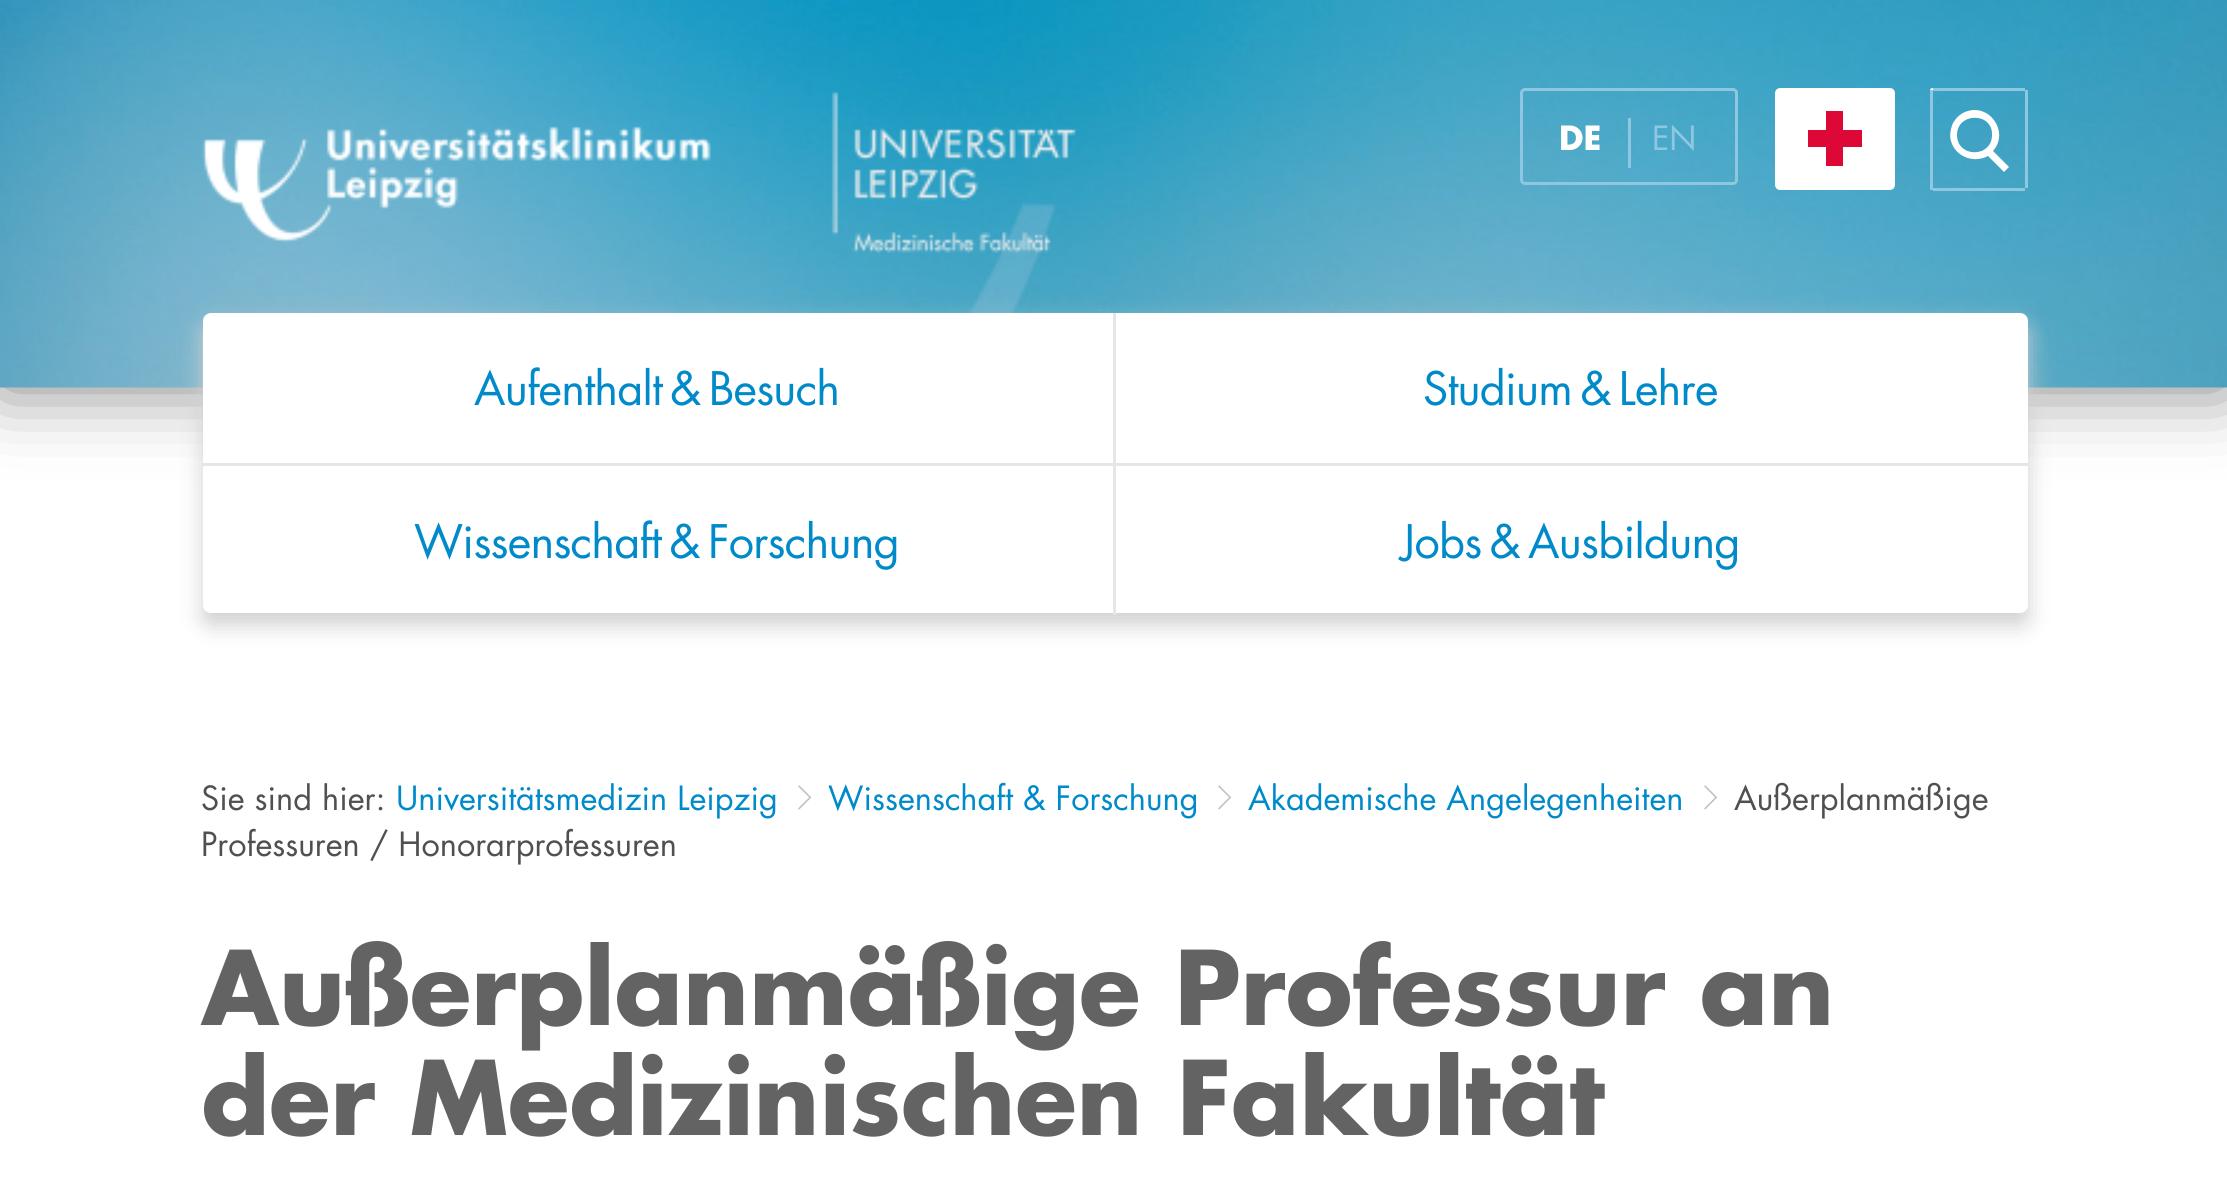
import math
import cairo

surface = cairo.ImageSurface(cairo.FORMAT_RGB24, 2227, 1189)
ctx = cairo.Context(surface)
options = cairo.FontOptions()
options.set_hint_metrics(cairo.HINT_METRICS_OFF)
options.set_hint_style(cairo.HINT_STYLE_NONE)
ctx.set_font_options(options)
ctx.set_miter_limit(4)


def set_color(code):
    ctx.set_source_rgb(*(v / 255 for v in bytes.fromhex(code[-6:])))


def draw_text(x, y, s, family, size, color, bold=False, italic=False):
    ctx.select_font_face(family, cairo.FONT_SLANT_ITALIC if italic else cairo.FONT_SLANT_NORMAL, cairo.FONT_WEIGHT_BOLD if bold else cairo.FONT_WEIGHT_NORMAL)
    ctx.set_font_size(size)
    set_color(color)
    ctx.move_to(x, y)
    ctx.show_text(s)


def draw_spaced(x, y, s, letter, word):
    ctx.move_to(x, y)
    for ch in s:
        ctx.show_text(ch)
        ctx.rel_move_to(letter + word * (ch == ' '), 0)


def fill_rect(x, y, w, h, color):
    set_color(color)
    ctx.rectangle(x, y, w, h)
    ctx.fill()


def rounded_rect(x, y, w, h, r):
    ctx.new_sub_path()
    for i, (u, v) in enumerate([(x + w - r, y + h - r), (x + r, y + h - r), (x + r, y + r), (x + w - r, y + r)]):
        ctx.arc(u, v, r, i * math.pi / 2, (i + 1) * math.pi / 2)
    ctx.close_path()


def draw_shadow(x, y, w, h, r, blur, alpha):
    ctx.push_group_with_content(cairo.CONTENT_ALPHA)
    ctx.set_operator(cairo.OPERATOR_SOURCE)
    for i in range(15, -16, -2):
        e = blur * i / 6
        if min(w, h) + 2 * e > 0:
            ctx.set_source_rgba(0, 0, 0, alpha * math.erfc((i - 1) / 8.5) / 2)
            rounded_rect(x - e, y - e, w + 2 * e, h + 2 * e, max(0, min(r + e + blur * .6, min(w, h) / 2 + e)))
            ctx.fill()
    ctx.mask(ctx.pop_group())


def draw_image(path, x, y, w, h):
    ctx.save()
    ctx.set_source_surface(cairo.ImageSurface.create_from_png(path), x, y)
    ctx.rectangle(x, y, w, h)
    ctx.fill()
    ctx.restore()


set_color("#ffffff")
ctx.paint()
set_color("#000000")
draw_shadow(0, 0, 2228, 388, 0, 37.5, 0.5)
draw_image("assets/img1.png", 0, 0, 2227, 388)
draw_image("assets/img2.png", 202, 91, 874, 162)
rounded_rect(1521.5, 89.5, 215, 94, 3.5)
set_color("#8fc7e3")
ctx.set_line_width(3)
ctx.stroke()
draw_text(1559, 150, "DE", "Futura", 32.5, "#ffffff", bold=True)
fill_rect(1628, 118, 3, 50, "#8fc7e3")
draw_text(1652, 150, "EN", "Futura", 32.5, "#8fc7e3")
rounded_rect(1776.5, 89.5, 117, 99, 3.5)
set_color("#ffffff")
ctx.stroke()
fill_rect(1778, 91, 114, 96, "#ffffff")
set_color("#dd0836")
ctx.new_path()
ctx.move_to(1808, 147)
ctx.line_to(1808, 130)
ctx.line_to(1826, 130)
ctx.line_to(1826, 111)
ctx.line_to(1843, 111)
ctx.line_to(1843, 130)
ctx.line_to(1862, 130)
ctx.line_to(1862, 147)
ctx.line_to(1843, 147)
ctx.line_to(1843, 166)
ctx.line_to(1826, 166)
ctx.line_to(1826, 147)
ctx.close_path()
ctx.fill()
set_color("#ffffff")
ctx.new_path()
ctx.move_to(1932.5, 88)
ctx.line_to(1933, 88)
ctx.line_to(1933, 190)
ctx.line_to(1932.5, 190)
ctx.curve_to(1931, 190, 1930, 189, 1930, 187.5)
ctx.line_to(1930, 90.5)
ctx.curve_to(1930, 89, 1931, 88, 1932.5, 88)
ctx.close_path()
ctx.fill()
fill_rect(1930, 90, 3, 100, "#8fc7e3")
fill_rect(1933, 88, 92, 3, "#8fc7e3")
fill_rect(2025, 90, 3, 98, "#8fc7e3")
fill_rect(1933, 188, 92, 3, "#8fc7e3")
set_color("#ffffff")
ctx.new_path()
ctx.move_to(1952, 144)
ctx.curve_to(1949, 137, 1950, 130, 1953, 123)
ctx.curve_to(1956, 118, 1960, 114, 1965, 112)
ctx.curve_to(1989, 102, 2010, 132, 1993, 151)
ctx.line_to(2009, 167)
ctx.line_to(2004, 172)
ctx.line_to(1988, 156)
ctx.curve_to(1975, 163, 1958, 158, 1952, 144)
ctx.close_path()
ctx.move_to(1957, 135)
ctx.curve_to(1957, 158, 1992, 158, 1992, 135)
ctx.curve_to(1993, 112, 1957, 112, 1957, 135)
ctx.close_path()
ctx.fill()
set_color("#d0d0d0")
draw_shadow(203, 325, 1825, 300, 8, 11, 1)
set_color("#ffffff")
rounded_rect(203, 313, 1825, 300, 8)
ctx.fill()
fill_rect(1113, 313, 3, 152, "#e6e6e6")
fill_rect(203, 463, 1825, 3, "#e6e6e6")
ctx.set_font_size(45)
set_color("#008ac9")
draw_spaced(474, 405, "Aufenthalt & Besuch", -0.75, -5)
draw_spaced(1423, 405, "Studium & Lehre", -0.75, -5)
fill_rect(1113, 465, 3, 150, "#e6e6e6")
set_color("#008ac9")
draw_spaced(414, 558, "Wissenschaft & Forschung", -0.75, -5)
draw_spaced(1401, 558, "Jobs & Ausbildung", -0.75, -5)
draw_text(396, 810, "Universitätsmedizin Leipzig", "Futura", 32.5, "#008ac9")
draw_text(798, 805, "2", "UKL", 25, "#c0c0c0")
draw_text(828, 810, "Wissenschaft & Forschung", "Futura", 32.5, "#008ac9")
draw_text(1218, 805, "2", "UKL", 25, "#c0c0c0")
draw_text(1248, 810, "Akademische Angelegenheiten", "Futura", 32.5, "#008ac9")
draw_text(1704, 805, "2", "UKL", 25, "#c0c0c0")
draw_text(1734, 810, "Außerplanmäßige", "Futura", 32.5, "#505050")
draw_text(201, 856, "Professuren / Honorarprofessuren", "Futura", 32.5, "#505050")
draw_text(201, 810, "Sie sind hier:", "Futura", 32.5, "#505050")
draw_text(201, 1025, "Außerplanmäßige Professur an", "Futura", 100, "#636363", bold=True)
draw_text(201, 1135, "der Medizinischen Fakultät", "Futura", 100, "#636363", bold=True)
surface.write_to_png("output.png")
